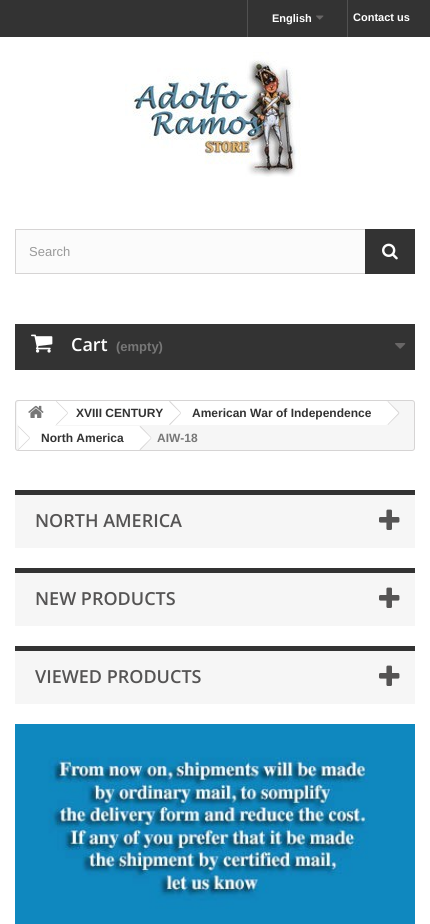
import math
import cairo

surface = cairo.ImageSurface(cairo.FORMAT_RGB24, 430, 924)
ctx = cairo.Context(surface)
options = cairo.FontOptions()
options.set_hint_metrics(cairo.HINT_METRICS_OFF)
options.set_hint_style(cairo.HINT_STYLE_NONE)
ctx.set_font_options(options)
ctx.set_miter_limit(4)


def set_color(code):
    ctx.set_source_rgb(*(v / 255 for v in bytes.fromhex(code[-6:])))


def draw_text(x, y, s, family, size, color, bold=False, italic=False):
    ctx.select_font_face(family, cairo.FONT_SLANT_ITALIC if italic else cairo.FONT_SLANT_NORMAL, cairo.FONT_WEIGHT_BOLD if bold else cairo.FONT_WEIGHT_NORMAL)
    ctx.set_font_size(size)
    set_color(color)
    ctx.move_to(x, y)
    ctx.show_text(s)


def fill_rect(x, y, w, h, color):
    set_color(color)
    ctx.rectangle(x, y, w, h)
    ctx.fill()


def rounded_rect(x, y, w, h, r):
    ctx.new_sub_path()
    for i, (u, v) in enumerate([(x + w - r, y + h - r), (x + r, y + h - r), (x + r, y + r), (x + w - r, y + r)]):
        ctx.arc(u, v, r, i * math.pi / 2, (i + 1) * math.pi / 2)
    ctx.close_path()


def draw_image(path, x, y, w, h):
    ctx.save()
    ctx.set_source_surface(cairo.ImageSurface.create_from_png(path), x, y)
    ctx.rectangle(x, y, w, h)
    ctx.fill()
    ctx.restore()


set_color("#ffffff")
ctx.paint()
fill_rect(0, 0, 430, 37, "#333333")
fill_rect(247, 0, 1, 37, "#515151")
draw_text(272, 22, "English", "Liberation Sans", 11, "#ffffff", bold=True)
draw_image("assets/img1.png", 316, 15, 8, 5)
fill_rect(347, 0, 1, 37, "#515151")
draw_text(353, 21, "Contact us", "Liberation Sans", 11, "#ffffff", bold=True)
draw_image("assets/img2.png", 125, 52, 176, 125)
fill_rect(16, 230, 349, 43, "#fbfbfb")
ctx.rectangle(15.5, 229.5, 399, 44)
set_color("#d6d4d4")
ctx.set_line_width(1)
ctx.stroke()
draw_text(29, 256, "Search", "Liberation Sans", 13, "#999999")
fill_rect(365, 229, 50, 45, "#333333")
draw_image("assets/img3.png", 382, 243, 16, 17)
fill_rect(15, 324, 400, 46, "#333333")
draw_image("assets/img4.png", 31, 334, 22, 19)
draw_text(71, 351, "Cart", "Open Sans SemiBold", 18, "#ffffff")
draw_text(116, 351, "(empty)", "Liberation Sans", 13, "#777777", bold=True)
draw_image("assets/img5.png", 395, 343, 11, 6)
set_color("#f6f6f6")
rounded_rect(15.5, 400.5, 399, 50, 2.5)
ctx.fill_preserve()
set_color("#d6d4d4")
ctx.stroke()
set_color("#ffffff")
ctx.new_path()
ctx.move_to(20, 401)
ctx.line_to(55, 401)
ctx.line_to(55, 426)
ctx.line_to(20, 426)
ctx.curve_to(18.5, 426, 17, 424.5, 17, 423)
ctx.line_to(17, 404)
ctx.curve_to(17, 402.5, 18.5, 401, 20, 401)
ctx.close_path()
ctx.fill()
draw_image("assets/img6.png", 28, 405, 16, 13)
fill_rect(55, 401, 115, 24, "#ffffff")
set_color("#d6d4d4")
ctx.new_path()
ctx.move_to(56.5, 401)
ctx.line_to(68, 412.5)
ctx.line_to(67.5, 413)
ctx.line_to(56, 401.5)
ctx.close_path()
ctx.move_to(67.5, 413)
ctx.line_to(68, 413.5)
ctx.line_to(56.5, 425)
ctx.line_to(56, 424.5)
ctx.close_path()
ctx.fill()
draw_text(76, 417, "XVIII CENTURY", "Liberation Sans", 12, "#333333", bold=True)
set_color("#ffffff")
ctx.new_path()
ctx.move_to(180.5, 401.5)
ctx.line_to(190.5, 411.5)
ctx.curve_to(191, 412.5, 191, 413.5, 190.5, 414.5)
ctx.line_to(180.5, 424.5)
ctx.curve_to(179.5, 425, 178.5, 425, 177.5, 424.5)
ctx.line_to(167.5, 414.5)
ctx.curve_to(167, 413.5, 167, 412.5, 167.5, 411.5)
ctx.line_to(177.5, 401.5)
ctx.curve_to(178.5, 401, 179.5, 401, 180.5, 401.5)
ctx.close_path()
ctx.fill()
fill_rect(170, 401, 216, 24, "#ffffff")
set_color("#d6d4d4")
ctx.new_path()
ctx.move_to(170, 401)
ctx.line_to(181, 412.5)
ctx.line_to(180.5, 413)
ctx.line_to(169, 401.5)
ctx.close_path()
ctx.move_to(180.5, 413)
ctx.line_to(181, 413.5)
ctx.line_to(170, 425)
ctx.line_to(169, 424.5)
ctx.close_path()
ctx.fill()
draw_text(192, 417, "American War of Independence", "Liberation Sans", 12, "#333333", bold=True)
set_color("#ffffff")
ctx.new_path()
ctx.move_to(389, 401.5)
ctx.line_to(398.5, 411.5)
ctx.curve_to(399.5, 412.5, 399.5, 413.5, 398.5, 414.5)
ctx.line_to(389, 424.5)
ctx.curve_to(388, 425, 387, 425, 386, 424.5)
ctx.line_to(376, 414.5)
ctx.curve_to(375.5, 413.5, 375.5, 412.5, 376, 411.5)
ctx.line_to(386, 401.5)
ctx.curve_to(387, 401, 388, 401, 389, 401.5)
ctx.close_path()
ctx.fill()
set_color("#d6d4d4")
ctx.new_path()
ctx.move_to(388, 401)
ctx.line_to(399.5, 412.5)
ctx.line_to(398.5, 413)
ctx.line_to(387.5, 401.5)
ctx.close_path()
ctx.move_to(398.5, 413)
ctx.line_to(399.5, 413.5)
ctx.line_to(388, 425)
ctx.line_to(387.5, 424.5)
ctx.close_path()
ctx.fill()
fill_rect(19, 426, 120, 24, "#ffffff")
set_color("#d6d4d4")
ctx.new_path()
ctx.move_to(18.5, 426)
ctx.line_to(30, 437.5)
ctx.line_to(29.5, 438)
ctx.line_to(18, 426.5)
ctx.close_path()
ctx.move_to(29.5, 438)
ctx.line_to(30, 438.5)
ctx.line_to(18.5, 450)
ctx.line_to(18, 449.5)
ctx.close_path()
ctx.fill()
draw_text(41, 442, "North America", "Liberation Sans", 12, "#333333", bold=True)
set_color("#ffffff")
ctx.new_path()
ctx.move_to(141, 426.5)
ctx.line_to(151, 436.5)
ctx.curve_to(152, 437.5, 152, 438.5, 151, 439.5)
ctx.line_to(141, 449.5)
ctx.curve_to(140.5, 450, 139, 450, 138.5, 449.5)
ctx.line_to(128.5, 439.5)
ctx.curve_to(127.5, 438.5, 127.5, 437.5, 128.5, 436.5)
ctx.line_to(138.5, 426.5)
ctx.curve_to(139, 426, 140.5, 426, 141, 426.5)
ctx.close_path()
ctx.fill()
set_color("#d6d4d4")
ctx.new_path()
ctx.move_to(140.5, 426)
ctx.line_to(151.5, 437.5)
ctx.line_to(151, 438)
ctx.line_to(139.5, 426.5)
ctx.close_path()
ctx.move_to(151, 438)
ctx.line_to(151.5, 438.5)
ctx.line_to(140.5, 450)
ctx.line_to(139.5, 449.5)
ctx.close_path()
ctx.fill()
draw_text(157, 442, "AIW-18", "Liberation Sans", 12, "#777777", bold=True)
fill_rect(15, 495, 400, 53, "#f6f6f6")
fill_rect(15, 490, 400, 5, "#333333")
draw_text(35, 527, "NORTH AMERICA", "Open Sans SemiBold", 18, "#555454")
draw_image("assets/img7.png", 379, 509, 21, 21)
fill_rect(15, 573, 400, 53, "#f6f6f6")
fill_rect(15, 568, 400, 5, "#333333")
draw_text(35, 605, "NEW PRODUCTS", "Open Sans SemiBold", 18, "#555454")
draw_image("assets/img7.png", 379, 587, 21, 21)
fill_rect(15, 651, 400, 53, "#f6f6f6")
fill_rect(15, 646, 400, 5, "#333333")
draw_text(35, 683, "VIEWED PRODUCTS", "Open Sans SemiBold", 18, "#555454")
draw_image("assets/img7.png", 379, 665, 21, 21)
draw_image("assets/img8.png", 15, 724, 400, 200)
surface.write_to_png("output.png")
